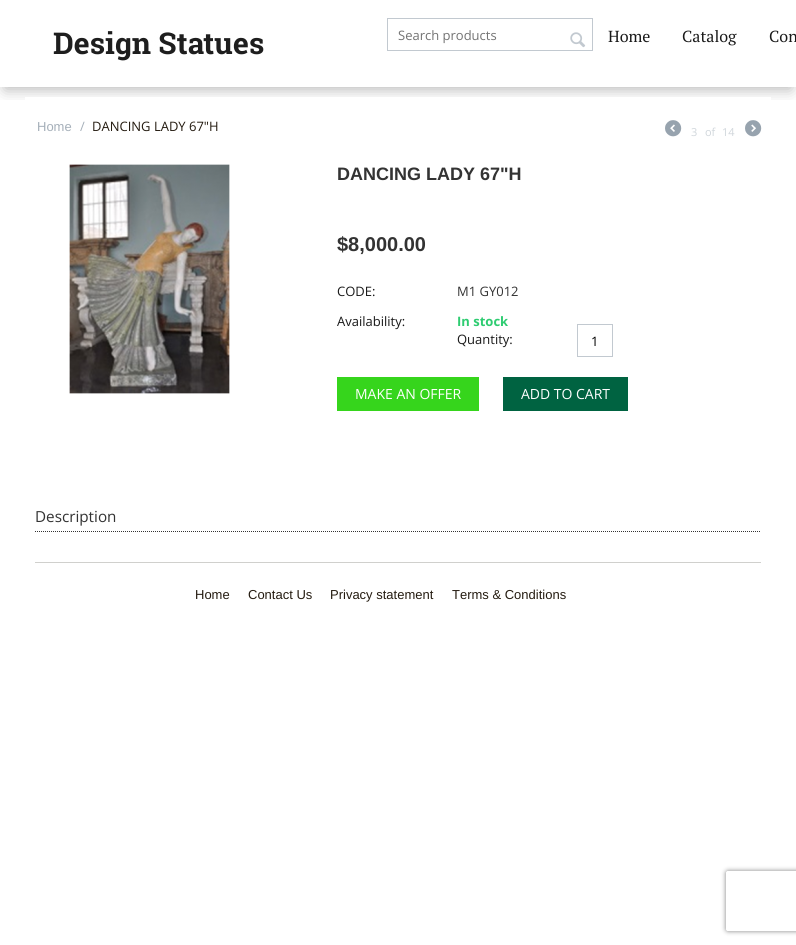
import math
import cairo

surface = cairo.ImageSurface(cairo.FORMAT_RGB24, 796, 945)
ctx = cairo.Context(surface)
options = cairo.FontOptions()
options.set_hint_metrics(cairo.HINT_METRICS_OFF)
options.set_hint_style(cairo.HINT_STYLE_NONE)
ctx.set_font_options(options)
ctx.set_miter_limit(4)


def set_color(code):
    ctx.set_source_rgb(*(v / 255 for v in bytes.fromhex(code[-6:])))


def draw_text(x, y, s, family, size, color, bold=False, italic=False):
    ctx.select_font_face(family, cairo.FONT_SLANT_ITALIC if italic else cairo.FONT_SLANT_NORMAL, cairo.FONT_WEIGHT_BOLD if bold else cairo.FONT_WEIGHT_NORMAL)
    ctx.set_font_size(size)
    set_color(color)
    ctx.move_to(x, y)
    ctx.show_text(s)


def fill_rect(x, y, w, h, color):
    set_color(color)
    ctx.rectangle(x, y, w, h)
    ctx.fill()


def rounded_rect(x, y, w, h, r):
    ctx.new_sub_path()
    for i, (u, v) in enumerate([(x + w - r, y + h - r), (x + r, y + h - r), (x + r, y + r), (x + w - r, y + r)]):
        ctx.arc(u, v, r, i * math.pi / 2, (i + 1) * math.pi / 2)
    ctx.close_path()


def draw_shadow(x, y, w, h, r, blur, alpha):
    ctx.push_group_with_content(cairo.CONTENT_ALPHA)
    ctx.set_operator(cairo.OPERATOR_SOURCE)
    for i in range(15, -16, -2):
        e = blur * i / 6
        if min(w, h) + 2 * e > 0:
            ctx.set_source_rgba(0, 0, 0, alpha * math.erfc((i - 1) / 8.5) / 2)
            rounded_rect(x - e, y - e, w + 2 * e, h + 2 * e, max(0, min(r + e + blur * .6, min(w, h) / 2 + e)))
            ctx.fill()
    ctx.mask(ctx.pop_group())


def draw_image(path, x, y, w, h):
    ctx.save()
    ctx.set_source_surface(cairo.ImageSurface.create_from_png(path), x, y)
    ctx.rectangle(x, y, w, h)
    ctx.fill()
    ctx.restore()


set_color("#ffffff")
ctx.paint()
ctx.save()
ctx.rectangle(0, 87, 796, 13)
ctx.clip()
set_color("#000000")
draw_shadow(5, 12, 786, 77, 0, 7.5, 0.3)
ctx.restore()
draw_image("assets/img1.png", 53, 31, 211, 30)
ctx.rectangle(387.5, 18.5, 205, 32)
set_color("#c2c9d0")
ctx.set_line_width(1)
ctx.stroke()
draw_text(398, 40, "Search products", "Open Sans", 13, "#737373")
draw_image("assets/img2.png", 570, 32, 16, 16)
draw_text(608, 42, "Home", "PT Serif", 16, "#191919")
draw_text(682, 42, "Catalog", "PT Serif", 16, "#191919")
draw_text(769, 42, "Con", "PT Serif", 16, "#191919")
fill_rect(25, 97, 746, 6, "#ffffff")
draw_text(37, 131, "Home", "Liberation Sans", 13, "#a5afb9")
draw_text(80, 131, "/", "Open Sans", 13, "#a5afb9")
draw_text(92, 131, "DANCING LADY 67\"H", "Open Sans", 13, "#241b10")
draw_image("assets/img3.png", 665, 120, 17, 17)
draw_text(691, 136, "3", "Open Sans", 11, "#d0d6db")
draw_text(705, 136, "of", "Open Sans", 11, "#d0d6db")
draw_text(722, 136, "14", "Open Sans", 11, "#d0d6db")
draw_image("assets/img4.png", 745, 120, 17, 17)
draw_image("assets/img5.png", 69, 164, 161, 230)
draw_text(337, 180, "DANCING LADY 67\"H", "Liberation Sans", 18, "#333333", bold=True)
draw_text(337, 251, "$8,000.00", "Liberation Sans", 20, "#333333", bold=True)
draw_text(337, 296, "CODE:", "Open Sans", 13, "#191919")
draw_text(457, 296, "M1 GY012", "Open Sans", 13, "#333333")
draw_text(337, 326, "Availability:", "Open Sans", 13, "#191919")
draw_text(457, 326, "In stock", "Open Sans", 13, "#2ecc71", bold=True)
draw_text(457, 344, "Quantity:", "Open Sans", 13, "#191919")
ctx.rectangle(577.5, 324.5, 35, 32)
set_color("#c2c9d0")
ctx.stroke()
draw_text(591, 346, "1", "Open Sans", 13, "#000000")
fill_rect(337, 377, 142, 34, "#36d51c")
draw_text(355, 399, "MAKE AN OFFER", "Open Sans", 14, "#ffffff")
fill_rect(503, 377, 125, 34, "#006341")
draw_text(521, 399, "ADD TO CART", "Open Sans", 14, "#ffffff")
ctx.new_path()
ctx.move_to(35, 531.5)
ctx.line_to(761, 531.5)
set_color("#333333")
ctx.set_dash([1, 1])
ctx.stroke()
draw_text(35, 522, "Description", "Open Sans", 15.25, "#333333")
fill_rect(35, 562, 726, 1, "#d0d0cd")
draw_text(195, 599, "Home", "Liberation Sans", 13, "#241b10")
draw_text(248, 599, "Contact Us", "Liberation Sans", 13, "#241b10")
draw_text(330, 599, "Privacy statement", "Liberation Sans", 13, "#241b10")
draw_text(452, 599, "Terms & Conditions", "Liberation Sans", 13, "#241b10")
ctx.save()
ctx.set_fill_rule(cairo.FILL_RULE_EVEN_ODD)
ctx.new_path()
ctx.move_to(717, 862)
ctx.line_to(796, 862)
ctx.line_to(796, 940)
ctx.line_to(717, 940)
ctx.close_path()
ctx.move_to(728, 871)
ctx.line_to(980, 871)
ctx.curve_to(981, 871, 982, 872, 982, 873)
ctx.line_to(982, 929)
ctx.curve_to(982, 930, 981, 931, 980, 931)
ctx.line_to(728, 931)
ctx.curve_to(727, 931, 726, 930, 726, 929)
ctx.line_to(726, 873)
ctx.curve_to(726, 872, 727, 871, 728, 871)
ctx.close_path()
ctx.clip()
set_color("#808080")
draw_shadow(726, 871, 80, 60, 2, 2.5, 1)
ctx.restore()
surface.write_to_png("output.png")
